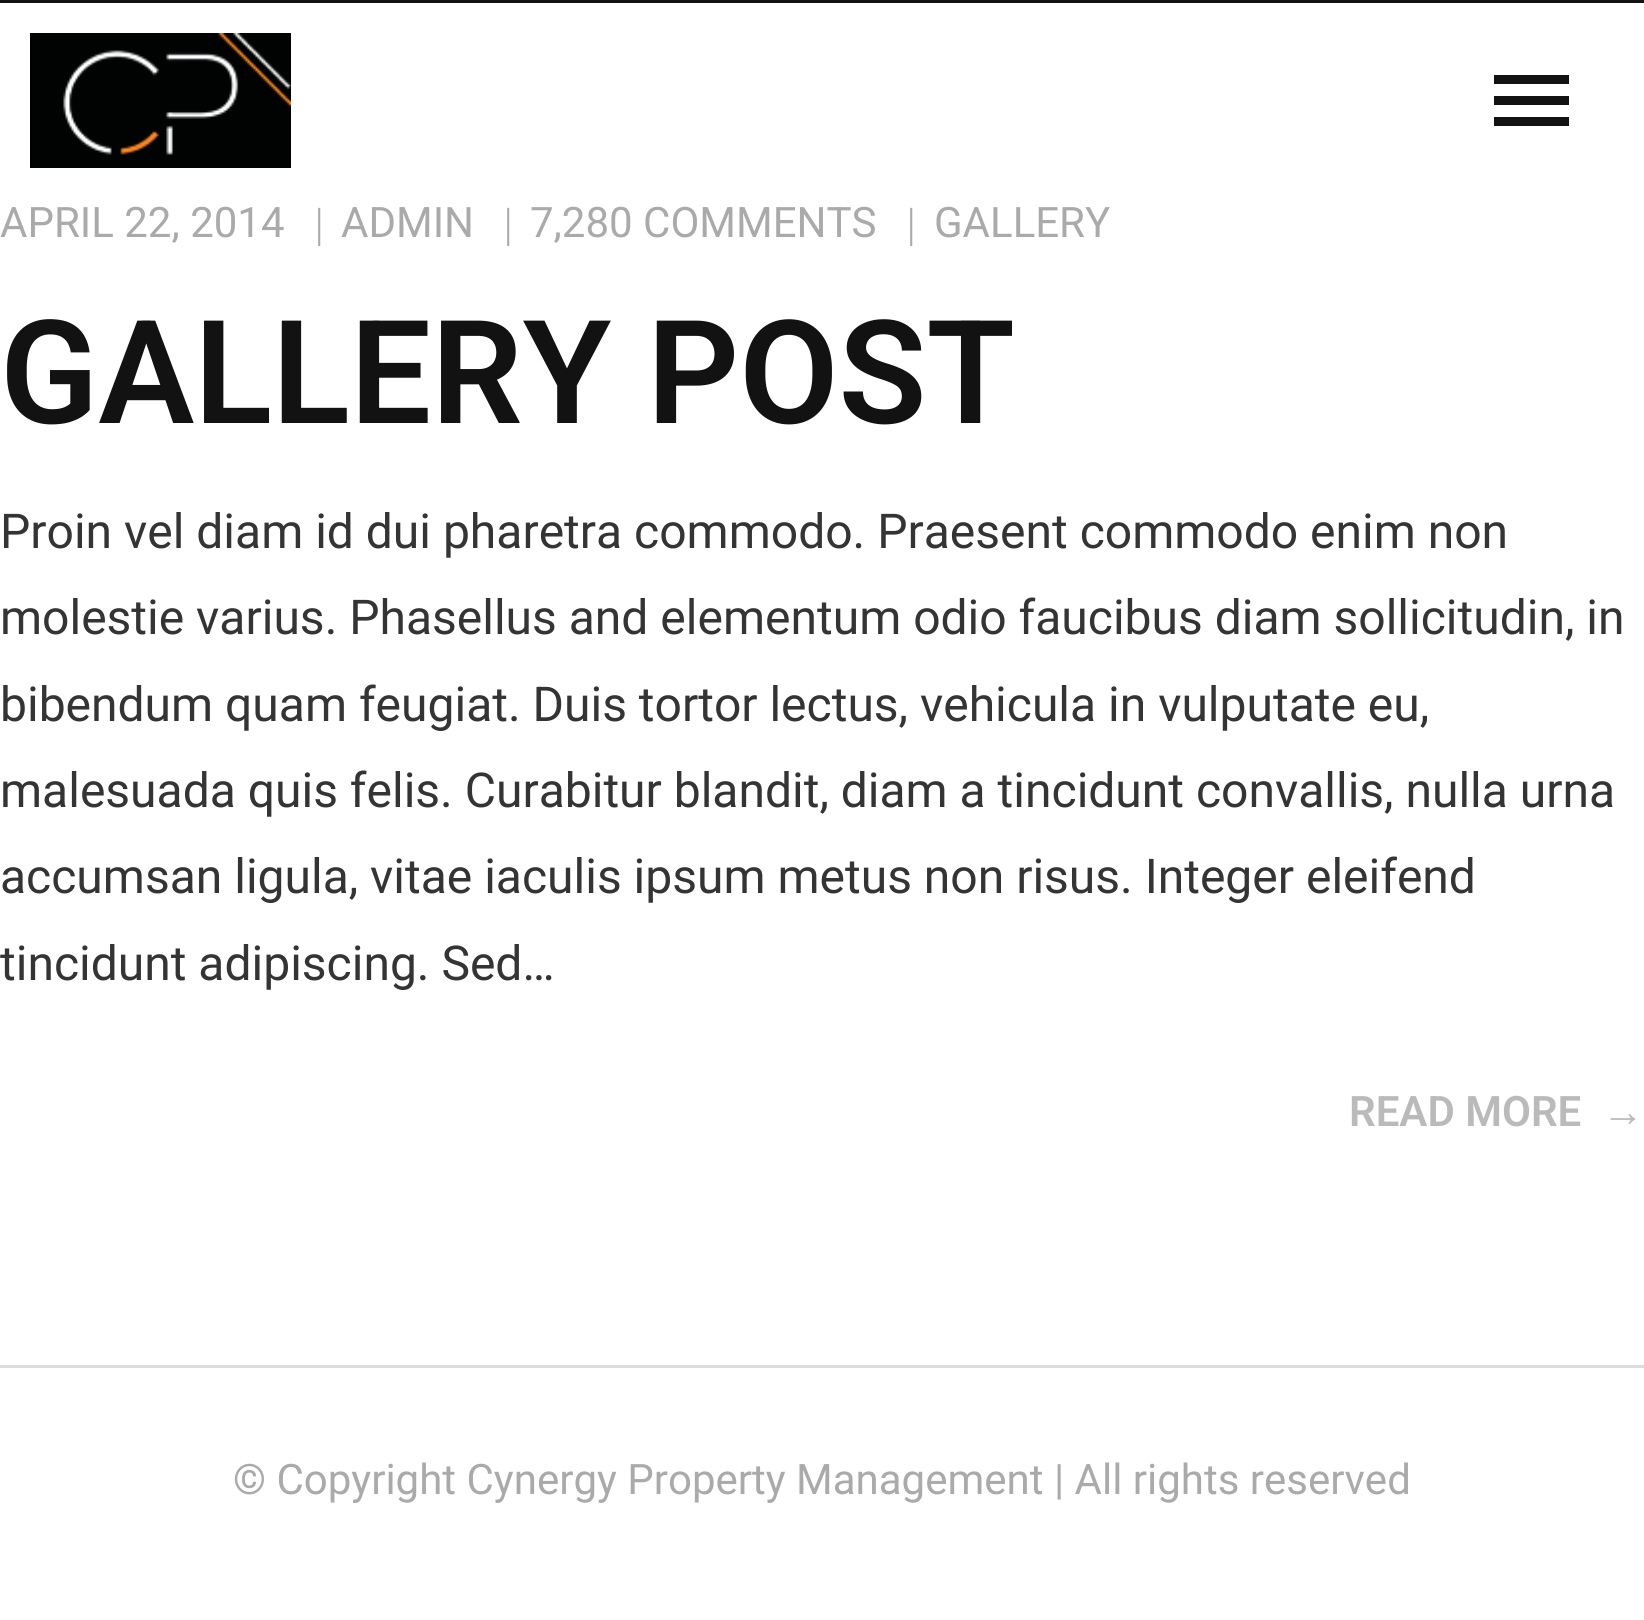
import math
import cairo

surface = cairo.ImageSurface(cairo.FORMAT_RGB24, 1644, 1620)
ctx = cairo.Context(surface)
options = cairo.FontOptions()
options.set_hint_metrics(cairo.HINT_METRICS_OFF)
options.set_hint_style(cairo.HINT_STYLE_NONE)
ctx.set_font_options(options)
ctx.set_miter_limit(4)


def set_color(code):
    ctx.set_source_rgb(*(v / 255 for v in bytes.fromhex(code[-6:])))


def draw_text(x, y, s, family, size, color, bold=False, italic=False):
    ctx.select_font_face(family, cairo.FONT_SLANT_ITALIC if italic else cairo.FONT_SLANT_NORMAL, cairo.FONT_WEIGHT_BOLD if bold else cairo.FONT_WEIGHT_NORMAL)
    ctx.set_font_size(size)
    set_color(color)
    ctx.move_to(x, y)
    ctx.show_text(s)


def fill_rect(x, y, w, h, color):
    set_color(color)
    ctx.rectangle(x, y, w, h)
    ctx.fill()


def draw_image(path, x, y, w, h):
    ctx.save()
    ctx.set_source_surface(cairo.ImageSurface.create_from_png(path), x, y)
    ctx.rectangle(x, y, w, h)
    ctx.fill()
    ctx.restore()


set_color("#ffffff")
ctx.paint()
fill_rect(0, 0, 1644, 3, "#121212")
draw_image("assets/img1.png", 30, 33, 261, 135)
fill_rect(1494, 75, 75, 9, "#121212")
fill_rect(1494, 96, 75, 9, "#121212")
fill_rect(1494, 117, 75, 9, "#121212")
draw_text(0, 237, "APRIL 22, 2014", "Roboto", 42, "#aaaaaa")
draw_text(315, 237, "|", "Liberation Serif", 42, "#aaaaaa")
draw_text(341, 237, "ADMIN", "Roboto", 42, "#aaaaaa")
draw_text(504, 237, "|", "Liberation Serif", 42, "#aaaaaa")
draw_text(530, 237, "7,280 COMMENTS", "Roboto", 42, "#aaaaaa")
draw_text(907, 237, "|", "Liberation Serif", 42, "#aaaaaa")
draw_text(934, 237, "GALLERY", "Roboto", 42, "#aaaaaa")
draw_text(0, 423, "GALLERY POST", "Roboto SemiBold", 144, "#121212")
draw_text(0, 548, "Proin vel diam id dui pharetra commodo. Praesent commodo enim non", "Roboto", 48, "#343434")
draw_text(0, 634, "molestie varius. Phasellus and elementum odio faucibus diam sollicitudin, in", "Roboto", 48, "#343434")
draw_text(0, 721, "bibendum quam feugiat. Duis tortor lectus, vehicula in vulputate eu,", "Roboto", 48, "#343434")
draw_text(0, 807, "malesuada quis felis. Curabitur blandit, diam a tincidunt convallis, nulla urna", "Roboto", 48, "#343434")
draw_text(0, 893, "accumsan ligula, vitae iaculis ipsum metus non risus. Integer eleifend", "Roboto", 48, "#343434")
draw_text(0, 980, "tincidunt adipiscing. Sed…", "Roboto", 48, "#343434")
draw_text(1349, 1126, "READ MORE", "Roboto SemiBold", 42, "#bababa")
draw_text(1602, 1126, "→", "Liberation Sans", 42, "#bababa", bold=True)
fill_rect(0, 1365, 1644, 3, "#dddddd")
draw_text(233, 1494, "© Copyright Cynergy Property Management | All rights reserved", "Roboto", 42, "#aaaaaa")
surface.write_to_png("output.png")
